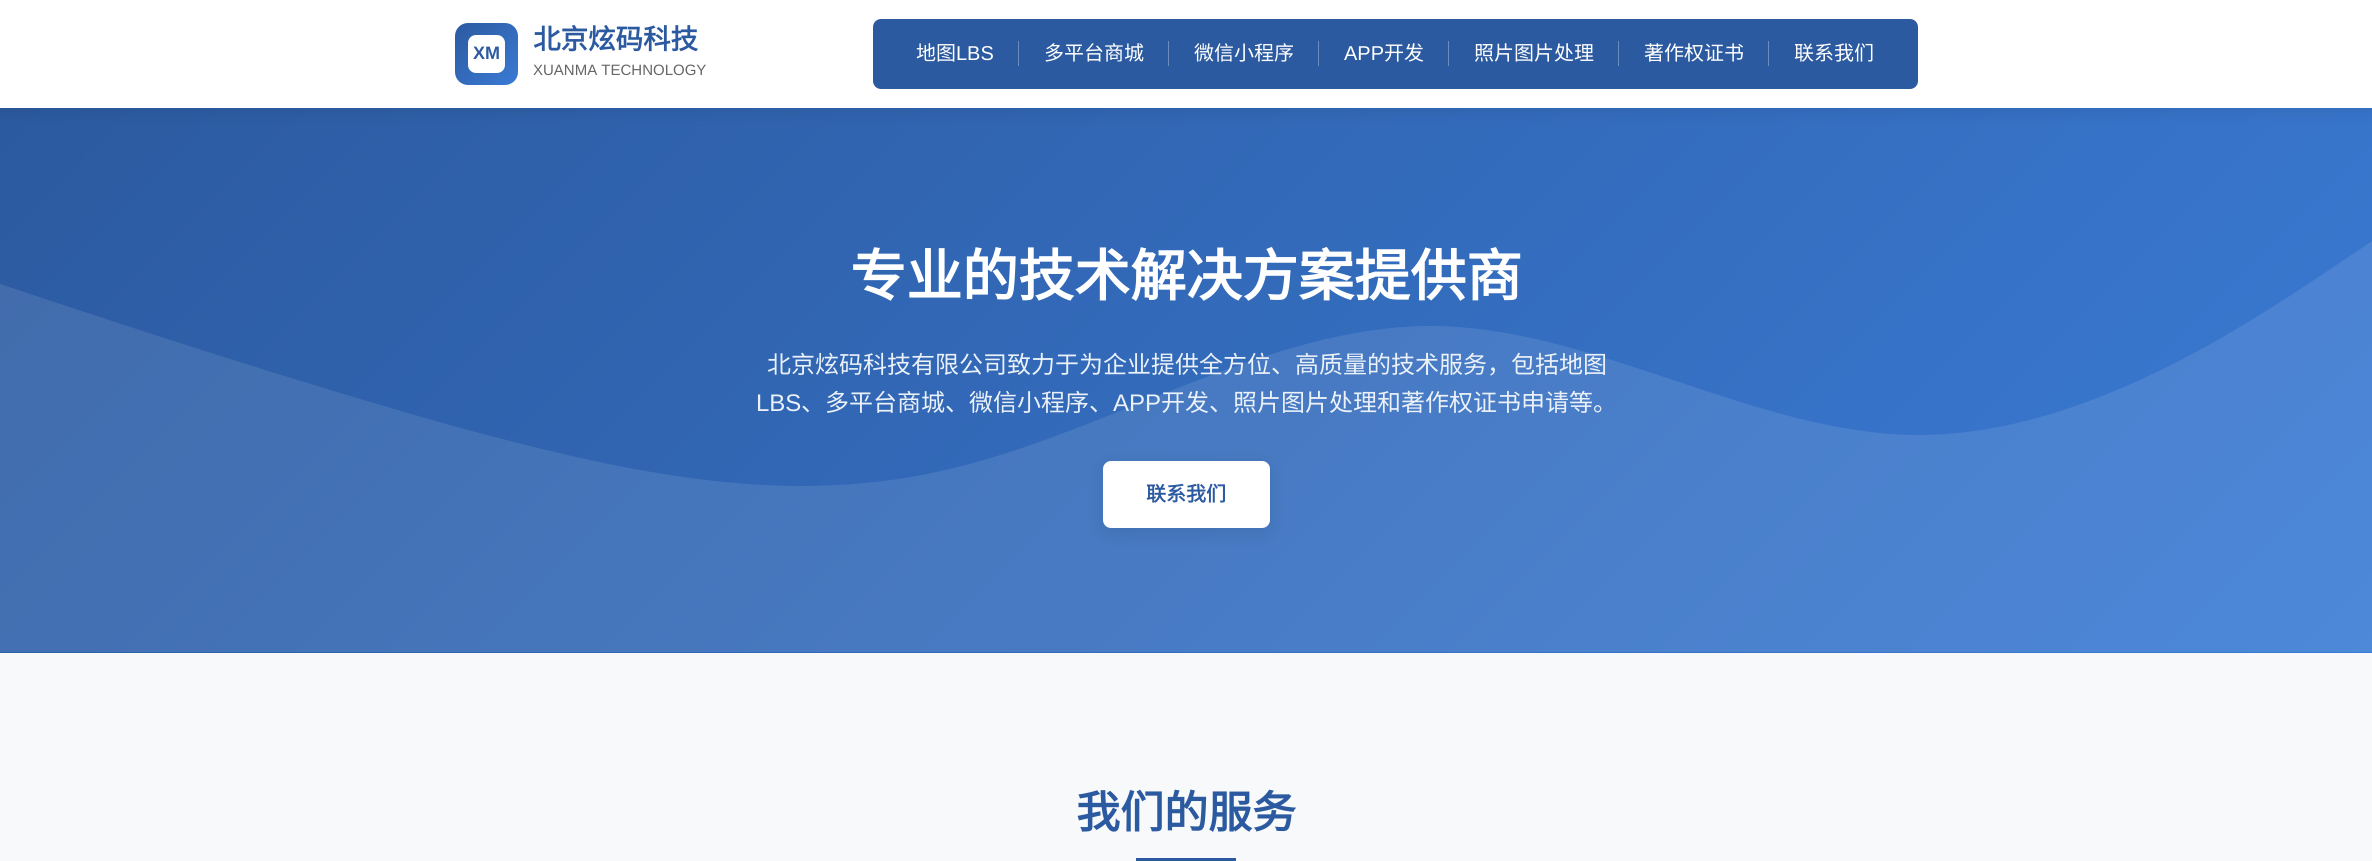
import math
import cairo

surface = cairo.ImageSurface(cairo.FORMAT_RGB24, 2372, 861)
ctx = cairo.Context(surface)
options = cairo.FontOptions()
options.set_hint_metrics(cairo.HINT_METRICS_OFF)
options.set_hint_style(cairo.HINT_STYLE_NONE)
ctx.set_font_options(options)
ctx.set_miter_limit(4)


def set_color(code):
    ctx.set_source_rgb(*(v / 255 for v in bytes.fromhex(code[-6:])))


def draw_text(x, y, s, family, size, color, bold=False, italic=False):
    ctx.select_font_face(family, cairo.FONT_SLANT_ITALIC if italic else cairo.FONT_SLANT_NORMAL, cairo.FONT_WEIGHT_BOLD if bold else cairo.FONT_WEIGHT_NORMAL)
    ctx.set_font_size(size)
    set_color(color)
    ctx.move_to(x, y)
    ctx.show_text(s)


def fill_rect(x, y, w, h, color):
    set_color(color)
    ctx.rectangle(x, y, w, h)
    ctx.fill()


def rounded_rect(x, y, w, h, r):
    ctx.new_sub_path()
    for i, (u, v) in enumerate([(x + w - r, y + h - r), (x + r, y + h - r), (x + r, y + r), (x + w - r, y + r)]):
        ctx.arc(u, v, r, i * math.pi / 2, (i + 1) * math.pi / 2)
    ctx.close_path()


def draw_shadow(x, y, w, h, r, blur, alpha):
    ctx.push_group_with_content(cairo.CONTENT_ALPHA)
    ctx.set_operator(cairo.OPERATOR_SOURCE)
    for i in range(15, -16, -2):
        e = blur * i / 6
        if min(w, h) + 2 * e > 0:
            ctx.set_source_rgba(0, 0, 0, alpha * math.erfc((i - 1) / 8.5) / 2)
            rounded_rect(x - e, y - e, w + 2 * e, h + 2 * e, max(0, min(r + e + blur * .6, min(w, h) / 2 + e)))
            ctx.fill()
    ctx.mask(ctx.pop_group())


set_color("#f8f9fa")
ctx.paint()
gradient = cairo.LinearGradient(457, -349, 1916, 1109)
gradient.add_color_stop_rgba(0, 0.173, 0.353, 0.627, 1)
gradient.add_color_stop_rgba(1, 0.227, 0.482, 0.835, 1)
ctx.set_source(gradient)
ctx.rectangle(0, 108, 2372, 545)
ctx.fill()
set_color("#000000")
draw_shadow(0, 3, 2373, 107, 0, 9.5, 0.1)
fill_rect(0, 0, 2372, 108, "#ffffff")
gradient = cairo.LinearGradient(455, 23, 518, 85)
gradient.add_color_stop_rgba(0, 0.173, 0.353, 0.627, 1)
gradient.add_color_stop_rgba(1, 0.227, 0.482, 0.835, 1)
ctx.set_source(gradient)
rounded_rect(455, 23, 63, 62, 13)
ctx.fill()
set_color("#ffffff")
rounded_rect(468, 35, 37, 38, 8)
ctx.fill()
draw_text(473, 59, "XM", "Liberation Sans", 18, "#2c5aa0", bold=True)
draw_text(533, 49, "北京炫码科技", "Noto Sans CJK SC", 27.5, "#2c5aa0", bold=True)
draw_text(533, 75, "XUANMA TECHNOLOGY", "Liberation Sans", 15, "#666666")
set_color("#2c5aa0")
rounded_rect(873, 19, 1045, 70, 8)
ctx.fill()
draw_text(916, 60, "地图", "Noto Sans CJK SC", 20, "#ffffff")
draw_text(956, 60, "LBS", "Liberation Sans", 20, "#ffffff")
fill_rect(1018, 41, 1, 25, "#6b8cbd")
draw_text(1044, 60, "多平台商城", "Noto Sans CJK SC", 20, "#ffffff")
fill_rect(1168, 41, 1, 25, "#6b8cbd")
draw_text(1194, 60, "微信小程序", "Noto Sans CJK SC", 20, "#ffffff")
fill_rect(1318, 41, 1, 25, "#6b8cbd")
draw_text(1344, 60, "APP", "Liberation Sans", 20, "#ffffff")
draw_text(1384, 60, "开发", "Noto Sans CJK SC", 20, "#ffffff")
fill_rect(1448, 41, 1, 25, "#6b8cbd")
draw_text(1474, 60, "照片图片处理", "Noto Sans CJK SC", 20, "#ffffff")
fill_rect(1618, 41, 1, 25, "#6b8cbd")
draw_text(1644, 60, "著作权证书", "Noto Sans CJK SC", 20, "#ffffff")
fill_rect(1768, 41, 1, 25, "#6b8cbd")
draw_text(1794, 60, "联系我们", "Noto Sans CJK SC", 20, "#ffffff")
ctx.set_source_rgba(1, 1, 1, 0.1)
ctx.new_path()
ctx.move_to(-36, 272)
ctx.line_to(45, 299)
ctx.curve_to(127, 326, 290, 380, 453, 426)
ctx.curve_to(616, 470, 778, 508, 941, 471)
ctx.curve_to(1104, 435, 1267, 326, 1430, 326)
ctx.curve_to(1593, 326, 1756, 435, 1919, 435)
ctx.curve_to(2082, 435, 2245, 326, 2326, 272)
ctx.line_to(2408, 217)
ctx.line_to(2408, 652)
ctx.line_to(-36, 652)
ctx.close_path()
ctx.fill()
draw_text(850, 296, "专业的技术解决方案提供商", "Noto Sans CJK SC", 56, "#ffffff", bold=True)
draw_text(767, 373, "北京炫码科技有限公司致力于为企业提供全方位、高质量的技术服务，包括地图", "Noto Sans CJK SC", 24, "#ebf1f8")
draw_text(756, 411, "LBS", "Liberation Sans", 24, "#ebf1f8")
draw_text(801, 411, "、多平台商城、微信小程序、", "Noto Sans CJK SC", 24, "#ebf1f8")
draw_text(1113, 411, "APP", "Liberation Sans", 24, "#ebf1f8")
draw_text(1161, 411, "开发、照片图片处理和著作权证书申请等。", "Noto Sans CJK SC", 24, "#ebf1f8")
set_color("#000000")
draw_shadow(1103, 466, 167, 67, 8, 9.5, 0.1)
set_color("#ffffff")
rounded_rect(1103, 461, 167, 67, 8)
ctx.fill()
draw_text(1146, 501, "联系我们", "Noto Sans CJK SC", 20, "#2c5aa0", bold=True)
draw_text(1076, 828, "我们的服务", "Noto Sans CJK SC", 44, "#2c5aa0", bold=True)
fill_rect(1136, 858, 100, 3, "#2c5aa0")
surface.write_to_png("output.png")
